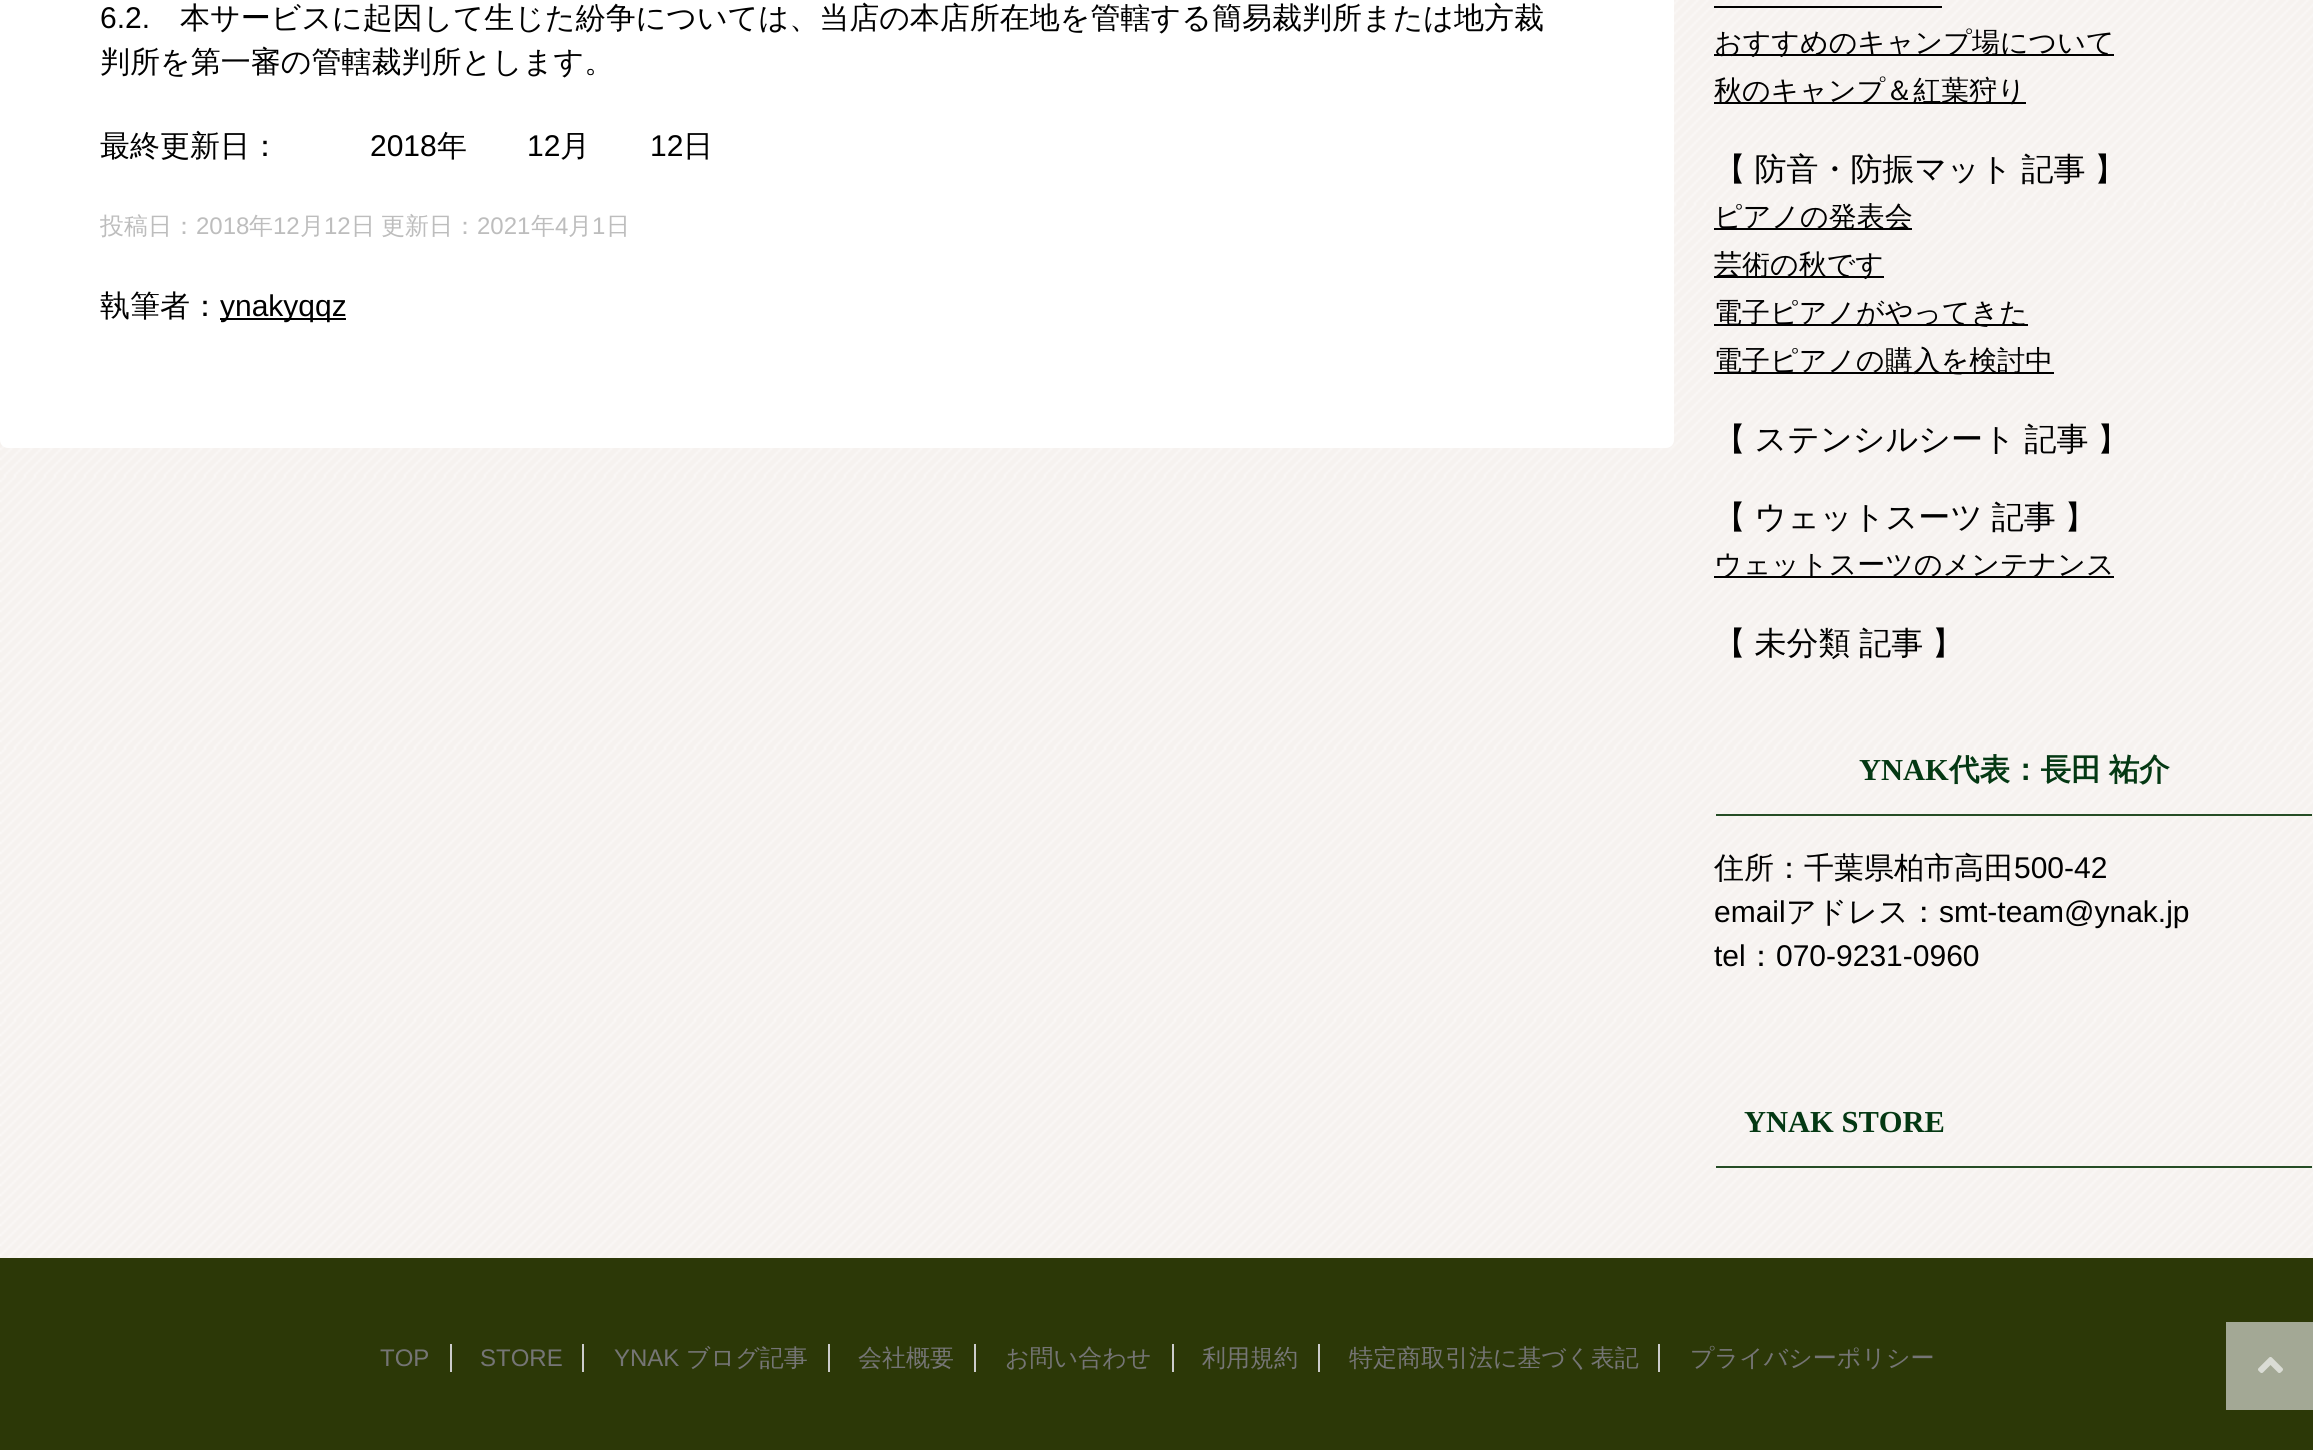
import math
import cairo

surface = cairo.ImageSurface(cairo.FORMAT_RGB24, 2313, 1450)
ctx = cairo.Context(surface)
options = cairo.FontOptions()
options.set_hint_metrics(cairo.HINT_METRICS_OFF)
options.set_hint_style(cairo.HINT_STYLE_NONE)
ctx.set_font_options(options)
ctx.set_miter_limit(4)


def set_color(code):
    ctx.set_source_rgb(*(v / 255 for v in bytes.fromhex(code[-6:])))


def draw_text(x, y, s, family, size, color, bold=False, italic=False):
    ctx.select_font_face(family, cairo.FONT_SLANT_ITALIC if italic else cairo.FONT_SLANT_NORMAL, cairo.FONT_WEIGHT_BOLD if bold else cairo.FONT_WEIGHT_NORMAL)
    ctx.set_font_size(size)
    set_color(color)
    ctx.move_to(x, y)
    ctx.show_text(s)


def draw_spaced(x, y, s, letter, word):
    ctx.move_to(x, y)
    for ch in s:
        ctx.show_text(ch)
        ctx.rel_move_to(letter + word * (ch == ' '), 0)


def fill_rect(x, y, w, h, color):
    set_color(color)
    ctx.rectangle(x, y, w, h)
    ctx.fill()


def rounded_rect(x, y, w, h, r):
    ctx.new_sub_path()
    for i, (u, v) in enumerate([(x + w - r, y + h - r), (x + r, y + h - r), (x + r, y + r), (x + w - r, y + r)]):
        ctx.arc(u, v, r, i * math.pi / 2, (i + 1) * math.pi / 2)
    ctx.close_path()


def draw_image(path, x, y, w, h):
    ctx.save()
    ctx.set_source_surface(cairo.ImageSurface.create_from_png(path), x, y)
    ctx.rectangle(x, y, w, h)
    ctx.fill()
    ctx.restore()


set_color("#ffffff")
ctx.paint()
draw_image("assets/img1.png", 0, 0, 2313, 1258)
set_color("#ffffff")
rounded_rect(0, -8, 1674, 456, 8)
ctx.fill()
draw_text(100, 28, "6.2.", "Liberation Sans", 30, "#000000")
draw_text(180, 28, "本サービスに起因して生じた紛争については、当店の本店所在地を管轄する簡易裁判所または地方裁", "WenQuanYi Zen Hei Medium", 30, "#000000")
draw_text(100, 72, "判所を第一審の管轄裁判所とします。", "WenQuanYi Zen Hei Medium", 30, "#000000")
draw_text(100, 156, "最終更新日：", "WenQuanYi Zen Hei Medium", 30, "#000000")
draw_text(370, 156, "2018", "Liberation Sans", 30, "#000000")
draw_text(437, 156, "年", "WenQuanYi Zen Hei Medium", 30, "#000000")
draw_text(527, 156, "12", "Liberation Sans", 30, "#000000")
draw_text(560, 156, "月", "WenQuanYi Zen Hei Medium", 30, "#000000")
draw_text(650, 156, "12", "Liberation Sans", 30, "#000000")
draw_text(683, 156, "日", "WenQuanYi Zen Hei Medium", 30, "#000000")
draw_text(100, 234, "投稿日：", "WenQuanYi Zen Hei Medium", 24, "#bdbdbd")
draw_text(196, 234, "2018", "Liberation Sans", 24, "#bdbdbd")
draw_text(249, 234, "年", "WenQuanYi Zen Hei Medium", 24, "#bdbdbd")
draw_text(273, 234, "12", "Liberation Sans", 24, "#bdbdbd")
draw_text(300, 234, "月", "WenQuanYi Zen Hei Medium", 24, "#bdbdbd")
draw_text(324, 234, "12", "Liberation Sans", 24, "#bdbdbd")
draw_text(351, 234, "日", "WenQuanYi Zen Hei Medium", 24, "#bdbdbd")
draw_text(381, 234, "更新日：", "WenQuanYi Zen Hei Medium", 24, "#bdbdbd")
draw_text(477, 234, "2021", "Liberation Sans", 24, "#bdbdbd")
draw_text(531, 234, "年", "WenQuanYi Zen Hei Medium", 24, "#bdbdbd")
draw_text(555, 234, "4", "Liberation Sans", 24, "#bdbdbd")
draw_text(568, 234, "月", "WenQuanYi Zen Hei Medium", 24, "#bdbdbd")
draw_text(592, 234, "1", "Liberation Sans", 24, "#bdbdbd")
draw_text(606, 234, "日", "WenQuanYi Zen Hei Medium", 24, "#bdbdbd")
draw_text(100, 316, "執筆者：", "WenQuanYi Zen Hei Medium", 30, "#000000")
fill_rect(220, 318, 126, 2, "#000000")
draw_text(220, 316, "ynakyqqz", "Liberation Sans", 30, "#000000")
fill_rect(1714, 6, 228, 2, "#000000")
fill_rect(1714, 54, 400, 2, "#000000")
draw_text(1714, 52, "おすすめのキャンプ場について", "WenQuanYi Zen Hei Medium", 28, "#000000")
fill_rect(1714, 102, 312, 2, "#000000")
draw_text(1714, 100, "秋のキャンプ＆紅葉狩り", "WenQuanYi Zen Hei Medium", 28, "#000000")
ctx.set_font_size(32)
draw_spaced(1714, 180, "【 防音・防振マット 記事 】", 0, -1)
fill_rect(1714, 228, 198, 2, "#000000")
draw_text(1714, 226, "ピアノの発表会", "WenQuanYi Zen Hei Medium", 28, "#000000")
fill_rect(1714, 276, 170, 2, "#000000")
draw_text(1714, 274, "芸術の秋です", "WenQuanYi Zen Hei Medium", 28, "#000000")
fill_rect(1714, 324, 314, 2, "#000000")
draw_text(1714, 322, "電子ピアノがやってきた", "WenQuanYi Zen Hei Medium", 28, "#000000")
fill_rect(1714, 372, 340, 2, "#000000")
draw_text(1714, 370, "電子ピアノの購入を検討中", "WenQuanYi Zen Hei Medium", 28, "#000000")
ctx.set_font_size(32)
draw_spaced(1714, 450, "【 ステンシルシート 記事 】", 0, -1)
draw_spaced(1714, 528, "【 ウェットスーツ 記事 】", 0, -1)
fill_rect(1714, 576, 400, 2, "#000000")
draw_text(1714, 574, "ウェットスーツのメンテナンス", "WenQuanYi Zen Hei Medium", 28, "#000000")
ctx.set_font_size(32)
draw_spaced(1714, 654, "【 未分類 記事 】", 0, -1)
fill_rect(1716, 814, 596, 2, "#254c25")
draw_text(1859, 780, "YNAK", "Liberation Serif", 30.5, "#043813", bold=True)
ctx.select_font_face("WenQuanYi Zen Hei", cairo.FONT_SLANT_NORMAL, cairo.FONT_WEIGHT_BOLD)
draw_spaced(1949, 780, "代表：長田 祐介", 0, -2)
draw_text(1714, 878, "住所：千葉県柏市高田", "WenQuanYi Zen Hei Medium", 30, "#000000")
draw_text(2014, 878, "500-42", "Liberation Sans", 30, "#000000")
draw_text(1714, 922, "email", "Liberation Sans", 30, "#000000")
draw_text(1786, 922, "アドレス：", "WenQuanYi Zen Hei Medium", 30, "#000000")
draw_text(1939, 922, "smt-team@ynak.jp", "Liberation Sans", 30, "#000000")
draw_text(1714, 966, "tel", "Liberation Sans", 30, "#000000")
draw_text(1746, 966, "：", "WenQuanYi Zen Hei Medium", 30, "#000000")
draw_text(1776, 966, "070-9231-0960", "Liberation Sans", 30, "#000000")
fill_rect(1716, 1166, 596, 2, "#254c25")
draw_text(1744, 1132, "YNAK STORE", "Liberation Serif", 30.5, "#043813", bold=True)
fill_rect(0, 1258, 2313, 192, "#2c3807")
draw_text(380, 1366, "TOP", "Liberation Sans", 24, "#757575")
fill_rect(450, 1344, 2, 28, "#cccccc")
draw_text(480, 1366, "STORE", "Liberation Sans", 24, "#757575")
fill_rect(582, 1344, 2, 28, "#cccccc")
draw_text(614, 1366, "YNAK", "Liberation Sans", 24, "#757575")
draw_text(686, 1366, "ブログ記事", "WenQuanYi Zen Hei Medium", 24, "#757575")
fill_rect(828, 1344, 2, 28, "#cccccc")
draw_text(858, 1366, "会社概要", "WenQuanYi Zen Hei Medium", 24, "#757575")
fill_rect(974, 1344, 2, 28, "#cccccc")
draw_text(1005, 1366, "お問い合わせ", "WenQuanYi Zen Hei Medium", 24, "#757575")
fill_rect(1172, 1344, 2, 28, "#cccccc")
draw_text(1202, 1366, "利用規約", "WenQuanYi Zen Hei Medium", 24, "#757575")
fill_rect(1318, 1344, 2, 28, "#cccccc")
draw_text(1349, 1366, "特定商取引法に基づく表記", "WenQuanYi Zen Hei Medium", 24, "#757575")
fill_rect(1658, 1344, 2, 28, "#cccccc")
draw_text(1690, 1366, "プライバシーポリシー", "WenQuanYi Zen Hei Medium", 24, "#757575")
fill_rect(2226, 1322, 87, 88, "#a3a895")
draw_image("assets/img2.png", 2258, 1357, 25, 16)
surface.write_to_png("output.png")
